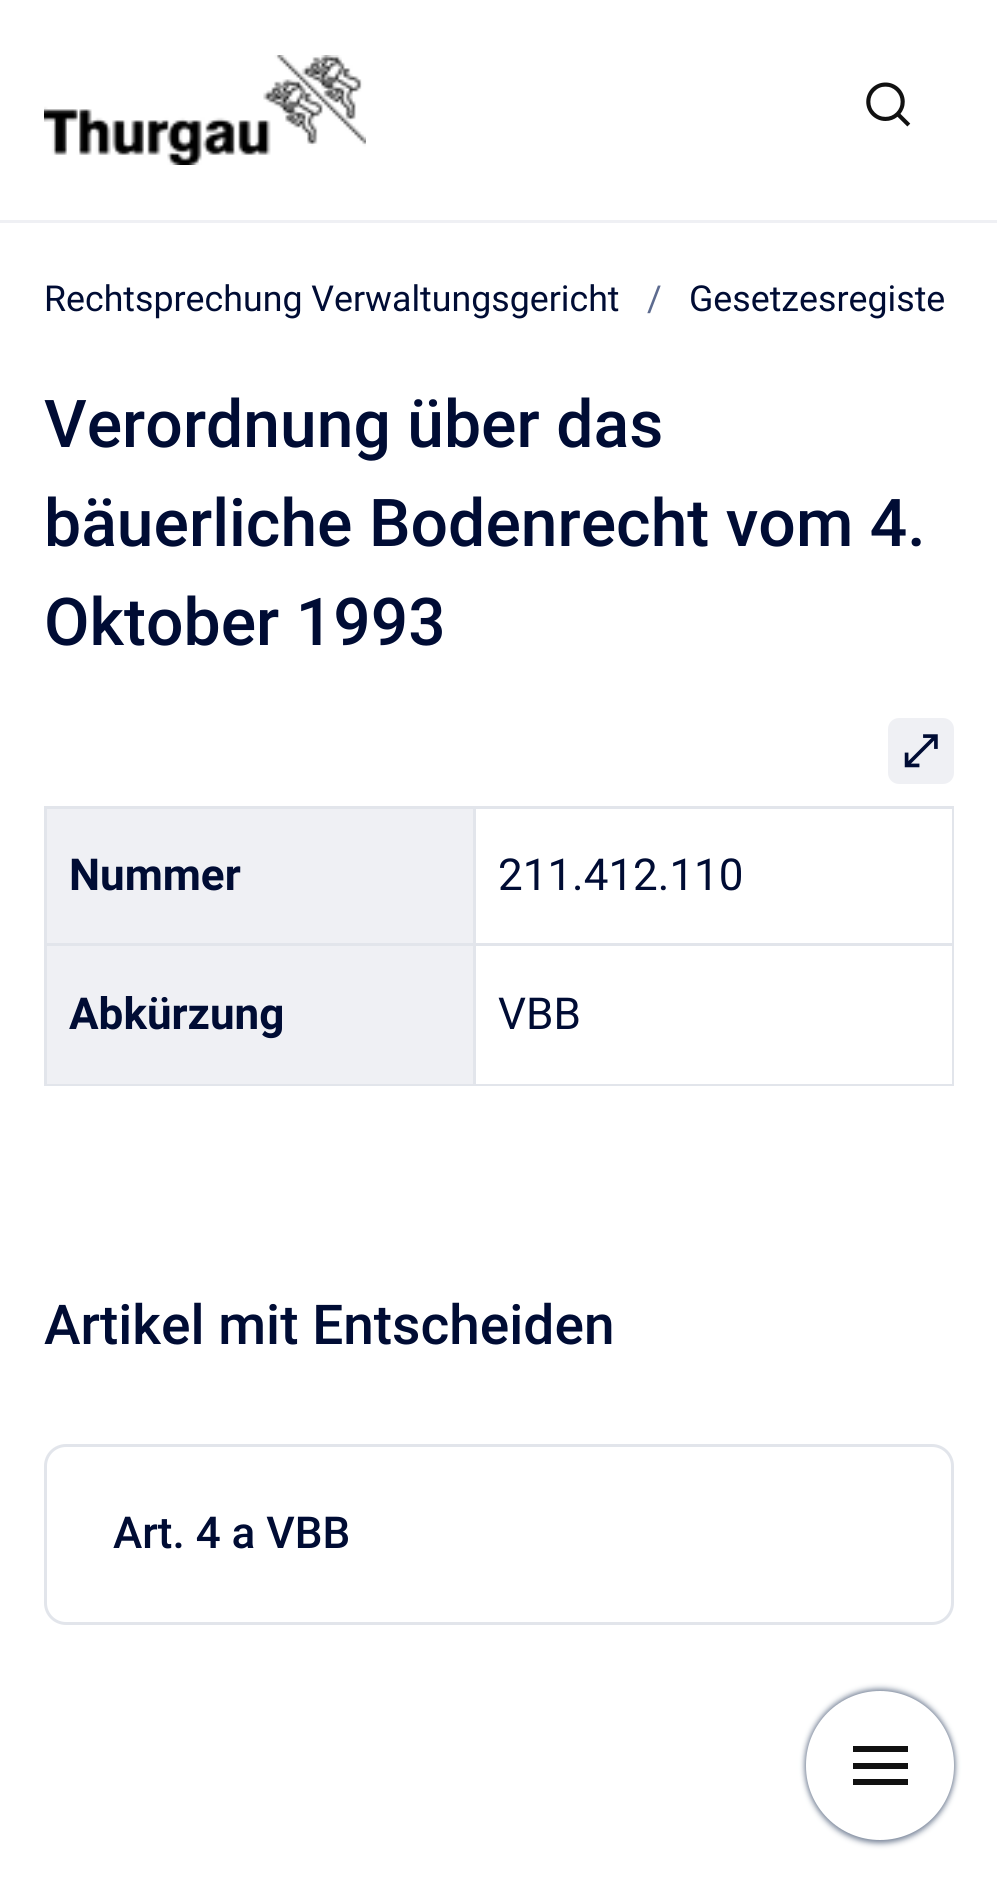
import math
import cairo

surface = cairo.ImageSurface(cairo.FORMAT_RGB24, 997, 1882)
ctx = cairo.Context(surface)
options = cairo.FontOptions()
options.set_hint_metrics(cairo.HINT_METRICS_OFF)
options.set_hint_style(cairo.HINT_STYLE_NONE)
ctx.set_font_options(options)
ctx.set_miter_limit(4)


def set_color(code):
    ctx.set_source_rgb(*(v / 255 for v in bytes.fromhex(code[-6:])))


def draw_text(x, y, s, family, size, color, bold=False, italic=False):
    ctx.select_font_face(family, cairo.FONT_SLANT_ITALIC if italic else cairo.FONT_SLANT_NORMAL, cairo.FONT_WEIGHT_BOLD if bold else cairo.FONT_WEIGHT_NORMAL)
    ctx.set_font_size(size)
    set_color(color)
    ctx.move_to(x, y)
    ctx.show_text(s)


def fill_rect(x, y, w, h, color):
    set_color(color)
    ctx.rectangle(x, y, w, h)
    ctx.fill()


def rounded_rect(x, y, w, h, r):
    ctx.new_sub_path()
    for i, (u, v) in enumerate([(x + w - r, y + h - r), (x + r, y + h - r), (x + r, y + r), (x + w - r, y + r)]):
        ctx.arc(u, v, r, i * math.pi / 2, (i + 1) * math.pi / 2)
    ctx.close_path()


def draw_shadow(x, y, w, h, r, blur, alpha):
    ctx.push_group_with_content(cairo.CONTENT_ALPHA)
    ctx.set_operator(cairo.OPERATOR_SOURCE)
    for i in range(15, -16, -2):
        e = blur * i / 6
        if min(w, h) + 2 * e > 0:
            ctx.set_source_rgba(0, 0, 0, alpha * math.erfc((i - 1) / 8.5) / 2)
            rounded_rect(x - e, y - e, w + 2 * e, h + 2 * e, max(0, min(r + e + blur * .6, min(w, h) / 2 + e)))
            ctx.fill()
    ctx.mask(ctx.pop_group())


def draw_image(path, x, y, w, h):
    ctx.save()
    ctx.set_source_surface(cairo.ImageSurface.create_from_png(path), x, y)
    ctx.rectangle(x, y, w, h)
    ctx.fill()
    ctx.restore()


set_color("#ffffff")
ctx.paint()
fill_rect(0, 220, 997, 3, "#eff0f4")
draw_image("assets/img1.png", 44, 55, 322, 110)
draw_image("assets/img2.png", 866, 82, 45, 45)
draw_text(44, 311, "Rechtsprechung Verwaltungsgericht", "Roboto", 35.75, "#000c34")
draw_text(647, 311, "/", "Roboto", 35.75, "#5d6b8f")
draw_text(689, 311, "Gesetzesregiste", "Roboto", 35.75, "#000c34")
draw_text(44, 447, "Verordnung über das", "Roboto Medium", 66, "#000c34")
draw_text(44, 546, "bäuerliche Bodenrecht vom 4.", "Roboto Medium", 66, "#000c34")
draw_text(44, 645, "Oktober 1993", "Roboto Medium", 66, "#000c34")
set_color("#eff0f4")
rounded_rect(889.5, 719.5, 63, 63, 9.5)
ctx.fill_preserve()
ctx.set_line_width(3)
ctx.stroke()
draw_image("assets/img3.png", 904, 734, 34, 34)
fill_rect(44, 806, 910, 3, "#e2e5eb")
fill_rect(952, 806, 2, 280, "#e2e5eb")
fill_rect(44, 1084, 910, 2, "#e2e5eb")
fill_rect(44, 806, 3, 280, "#e2e5eb")
fill_rect(47, 809, 426, 134, "#eff0f4")
draw_text(69, 890, "Nummer", "Roboto", 44, "#000c34", bold=True)
fill_rect(473, 943, 481, 3, "#e2e5eb")
fill_rect(473, 943, 3, 143, "#e2e5eb")
fill_rect(44, 943, 432, 3, "#e2e5eb")
fill_rect(473, 806, 3, 140, "#e2e5eb")
draw_text(498, 890, "211.412.110", "Roboto", 44, "#000c34")
fill_rect(47, 946, 426, 138, "#eff0f4")
draw_text(69, 1029, "Abkürzung", "Roboto", 44, "#000c34", bold=True)
draw_text(498, 1029, "VBB", "Roboto", 44, "#000c34")
draw_text(44, 1344, "Artikel mit Entscheiden", "Roboto Medium", 55, "#000c34")
rounded_rect(45.5, 1445.5, 907, 178, 20.5)
set_color("#e2e5eb")
ctx.stroke()
draw_text(113, 1548, "Art. 4 a VBB", "Roboto Medium", 44, "#000c34")
set_color("#7a869a")
draw_shadow(806, 1689, 148, 148, 74, 3, 1)
draw_shadow(806, 1694, 148, 149, 74, 3, 1)
set_color("#ffffff")
rounded_rect(806, 1691, 148, 149, 74)
ctx.fill()
fill_rect(853, 1746, 55, 6, "#111111")
fill_rect(853, 1763, 55, 6, "#111111")
fill_rect(853, 1779, 55, 6, "#111111")
surface.write_to_png("output.png")
